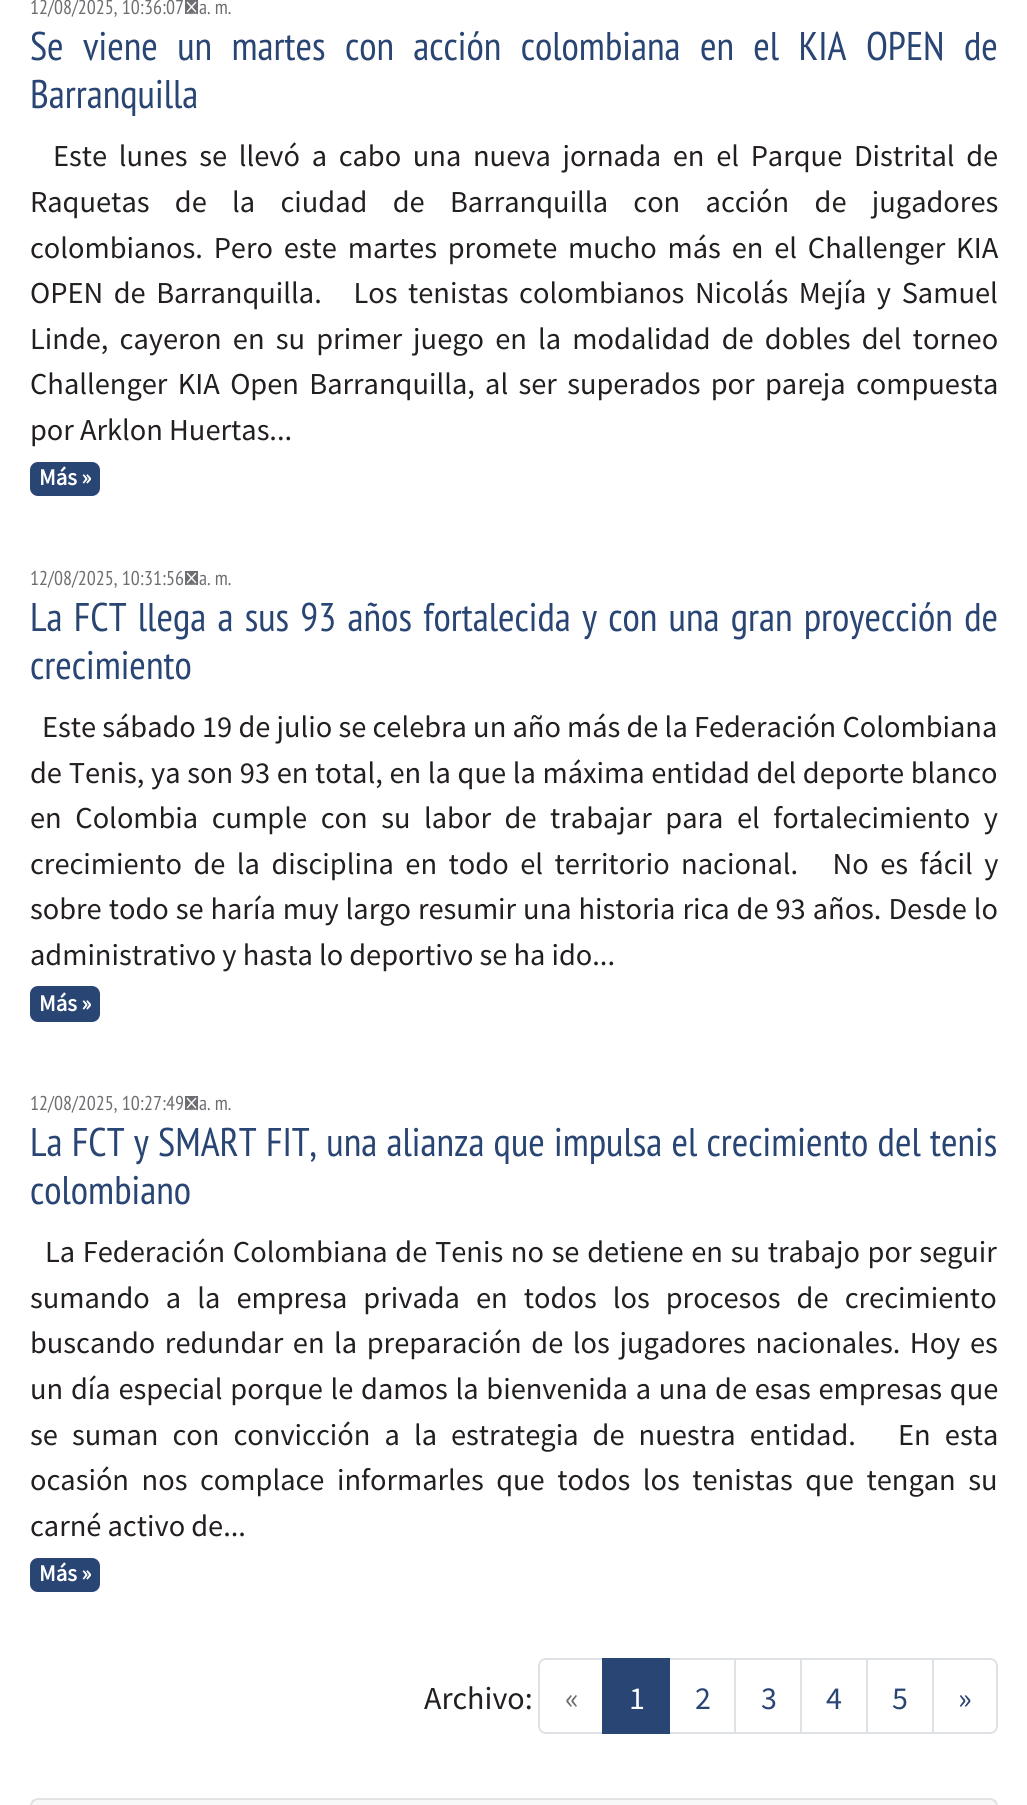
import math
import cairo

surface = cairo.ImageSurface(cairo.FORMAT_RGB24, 1027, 1805)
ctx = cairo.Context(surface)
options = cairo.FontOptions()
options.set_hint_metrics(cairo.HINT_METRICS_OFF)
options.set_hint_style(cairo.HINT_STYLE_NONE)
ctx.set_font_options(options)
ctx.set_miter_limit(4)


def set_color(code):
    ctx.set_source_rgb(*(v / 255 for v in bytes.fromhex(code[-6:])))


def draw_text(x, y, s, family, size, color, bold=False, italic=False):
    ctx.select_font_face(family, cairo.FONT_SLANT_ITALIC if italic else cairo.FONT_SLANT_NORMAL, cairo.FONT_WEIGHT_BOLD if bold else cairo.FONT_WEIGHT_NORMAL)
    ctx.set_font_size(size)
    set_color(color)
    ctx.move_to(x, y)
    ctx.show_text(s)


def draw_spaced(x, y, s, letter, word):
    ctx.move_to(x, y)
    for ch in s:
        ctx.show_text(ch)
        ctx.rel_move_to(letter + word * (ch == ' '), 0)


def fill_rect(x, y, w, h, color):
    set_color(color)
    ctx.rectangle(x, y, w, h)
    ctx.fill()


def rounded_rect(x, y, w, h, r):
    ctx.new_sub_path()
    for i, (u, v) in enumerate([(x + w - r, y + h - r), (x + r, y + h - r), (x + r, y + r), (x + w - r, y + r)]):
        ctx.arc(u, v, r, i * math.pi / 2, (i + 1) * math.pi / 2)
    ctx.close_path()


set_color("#ffffff")
ctx.paint()
draw_text(30, 14, "12/08/2025, 10:36:07 a. m.", "PT Sans Narrow", 20, "#6d6e71")
ctx.set_font_size(40)
set_color("#294573")
draw_spaced(30, 60, "Se viene un martes con acción colombiana en el KIA OPEN de", 0, 10.9)
draw_text(30, 108, "Barranquilla", "PT Sans Narrow", 40, "#294573")
ctx.select_font_face("Source Sans Pro")
ctx.set_font_size(30.4)
set_color("#231f20")
draw_spaced(53, 166, "Este lunes se llevó a cabo una nueva jornada en el Parque Distrital de", 0, 5.6)
draw_spaced(30, 212, "Raquetas de la ciudad de Barranquilla con acción de jugadores", 0, 19.25)
draw_spaced(30, 258, "colombianos. Pero este martes promete mucho más en el Challenger KIA", 0, 4.75)
draw_spaced(30, 303, "OPEN de Barranquilla.   Los tenistas colombianos Nicolás Mejía y Samuel", 0, 4.5)
draw_spaced(30, 349, "Linde, cayeron en su primer juego en la modalidad de dobles del torneo", 0, 5.1)
draw_spaced(30, 394, "Challenger KIA Open Barranquilla, al ser superados por pareja compuesta", 0, 4.25)
draw_text(30, 440, "por Arklon Huertas...", "Source Sans Pro", 30.4, "#231f20")
set_color("#294573")
rounded_rect(30, 462, 70, 34, 8)
ctx.fill()
draw_text(39, 485, "Más »", "Source Sans Pro", 23, "#ffffff", bold=True)
draw_text(30, 585, "12/08/2025, 10:31:56 a. m.", "PT Sans Narrow", 20, "#6d6e71")
ctx.set_font_size(40)
set_color("#294573")
draw_spaced(30, 631, "La FCT llega a sus 93 años fortalecida y con una gran proyección de", 0, 2.75)
draw_text(30, 679, "crecimiento", "PT Sans Narrow", 40, "#294573")
ctx.select_font_face("Source Sans Pro")
ctx.set_font_size(30.4)
set_color("#231f20")
draw_spaced(42, 737, "Este sábado 19 de julio se celebra un año más de la Federación Colombiana", 0, 0.1)
draw_spaced(30, 783, "de Tenis, ya son 93 en total, en la que la máxima entidad del deporte blanco", 0, 0.6)
draw_spaced(30, 828, "en Colombia cumple con su labor de trabajar para el fortalecimiento y", 0, 7.5)
draw_spaced(30, 874, "crecimiento de la disciplina en todo el territorio nacional.   No es fácil y", 0, 5.4)
draw_spaced(30, 919, "sobre todo se haría muy largo resumir una historia rica de 93 años. Desde lo", 0, 0.9)
draw_text(30, 965, "administrativo y hasta lo deportivo se ha ido...", "Source Sans Pro", 30.4, "#231f20")
set_color("#294573")
rounded_rect(30, 986, 70, 36, 8)
ctx.fill()
draw_text(39, 1011, "Más »", "Source Sans Pro", 23, "#ffffff", bold=True)
draw_text(30, 1110, "12/08/2025, 10:27:49 a. m.", "PT Sans Narrow", 20, "#6d6e71")
ctx.set_font_size(40)
set_color("#294573")
draw_spaced(30, 1156, "La FCT y SMART FIT, una alianza que impulsa el crecimiento del tenis", 0, 0.75)
draw_text(30, 1204, "colombiano", "PT Sans Narrow", 40, "#294573")
ctx.select_font_face("Source Sans Pro")
ctx.set_font_size(30.4)
set_color("#231f20")
draw_spaced(45, 1262, "La Federación Colombiana de Tenis no se detiene en su trabajo por seguir", 0, 1.6)
draw_spaced(30, 1308, "sumando a la empresa privada en todos los procesos de crecimiento", 0, 10)
draw_spaced(30, 1353, "buscando redundar en la preparación de los jugadores nacionales. Hoy es", 0, 3.5)
draw_spaced(30, 1399, "un día especial porque le damos la bienvenida a una de esas empresas que", 0, 1.7)
draw_spaced(30, 1445, "se suman con convicción a la estrategia de nuestra entidad.   En esta", 0, 8)
draw_spaced(30, 1490, "ocasión nos complace informarles que todos los tenistas que tengan su", 0, 6.5)
draw_text(30, 1536, "carné activo de...", "Source Sans Pro", 30.4, "#231f20")
set_color("#294573")
rounded_rect(30, 1558, 70, 34, 8)
ctx.fill()
draw_text(39, 1581, "Más »", "Source Sans Pro", 23, "#ffffff", bold=True)
draw_text(424, 1709, "Archivo:", "Source Sans Pro", 32, "#231f20")
ctx.new_path()
ctx.move_to(546, 1659)
ctx.line_to(603, 1659)
ctx.line_to(603, 1733)
ctx.line_to(546, 1733)
ctx.curve_to(542, 1733, 539, 1730, 539, 1726)
ctx.line_to(539, 1666)
ctx.curve_to(539, 1662, 542, 1659, 546, 1659)
ctx.close_path()
set_color("#dee2e6")
ctx.stroke()
draw_text(565, 1709, "«", "Source Sans Pro", 32, "#6d6e71")
ctx.rectangle(669, 1659, 66, 74)
set_color("#dee2e6")
ctx.stroke()
fill_rect(602, 1658, 68, 76, "#294573")
draw_text(629, 1709, "1", "Source Sans Pro", 32, "#ffffff")
draw_text(695, 1709, "2", "Source Sans Pro", 32, "#294573")
ctx.rectangle(735, 1659, 66, 74)
set_color("#dee2e6")
ctx.stroke()
draw_text(761, 1709, "3", "Source Sans Pro", 32, "#294573")
ctx.rectangle(801, 1659, 66, 74)
set_color("#dee2e6")
ctx.stroke()
draw_text(826, 1709, "4", "Source Sans Pro", 32, "#294573")
ctx.rectangle(867, 1659, 66, 74)
set_color("#dee2e6")
ctx.stroke()
draw_text(892, 1709, "5", "Source Sans Pro", 32, "#294573")
set_color("#ffffff")
ctx.new_path()
ctx.move_to(933, 1659)
ctx.line_to(990, 1659)
ctx.curve_to(994, 1659, 997, 1662, 997, 1666)
ctx.line_to(997, 1726)
ctx.curve_to(997, 1730, 994, 1733, 990, 1733)
ctx.line_to(933, 1733)
ctx.close_path()
ctx.fill_preserve()
set_color("#dee2e6")
ctx.stroke()
draw_text(958, 1709, "»", "Source Sans Pro", 32, "#294573")
rounded_rect(31, 1799, 966, 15, 7)
set_color("#e4e3e3")
ctx.stroke()
ctx.set_source_rgba(0.137, 0.122, 0.125, 0.03)
ctx.rectangle(32, 1800, 964, 5)
ctx.fill()
surface.write_to_png("output.png")
